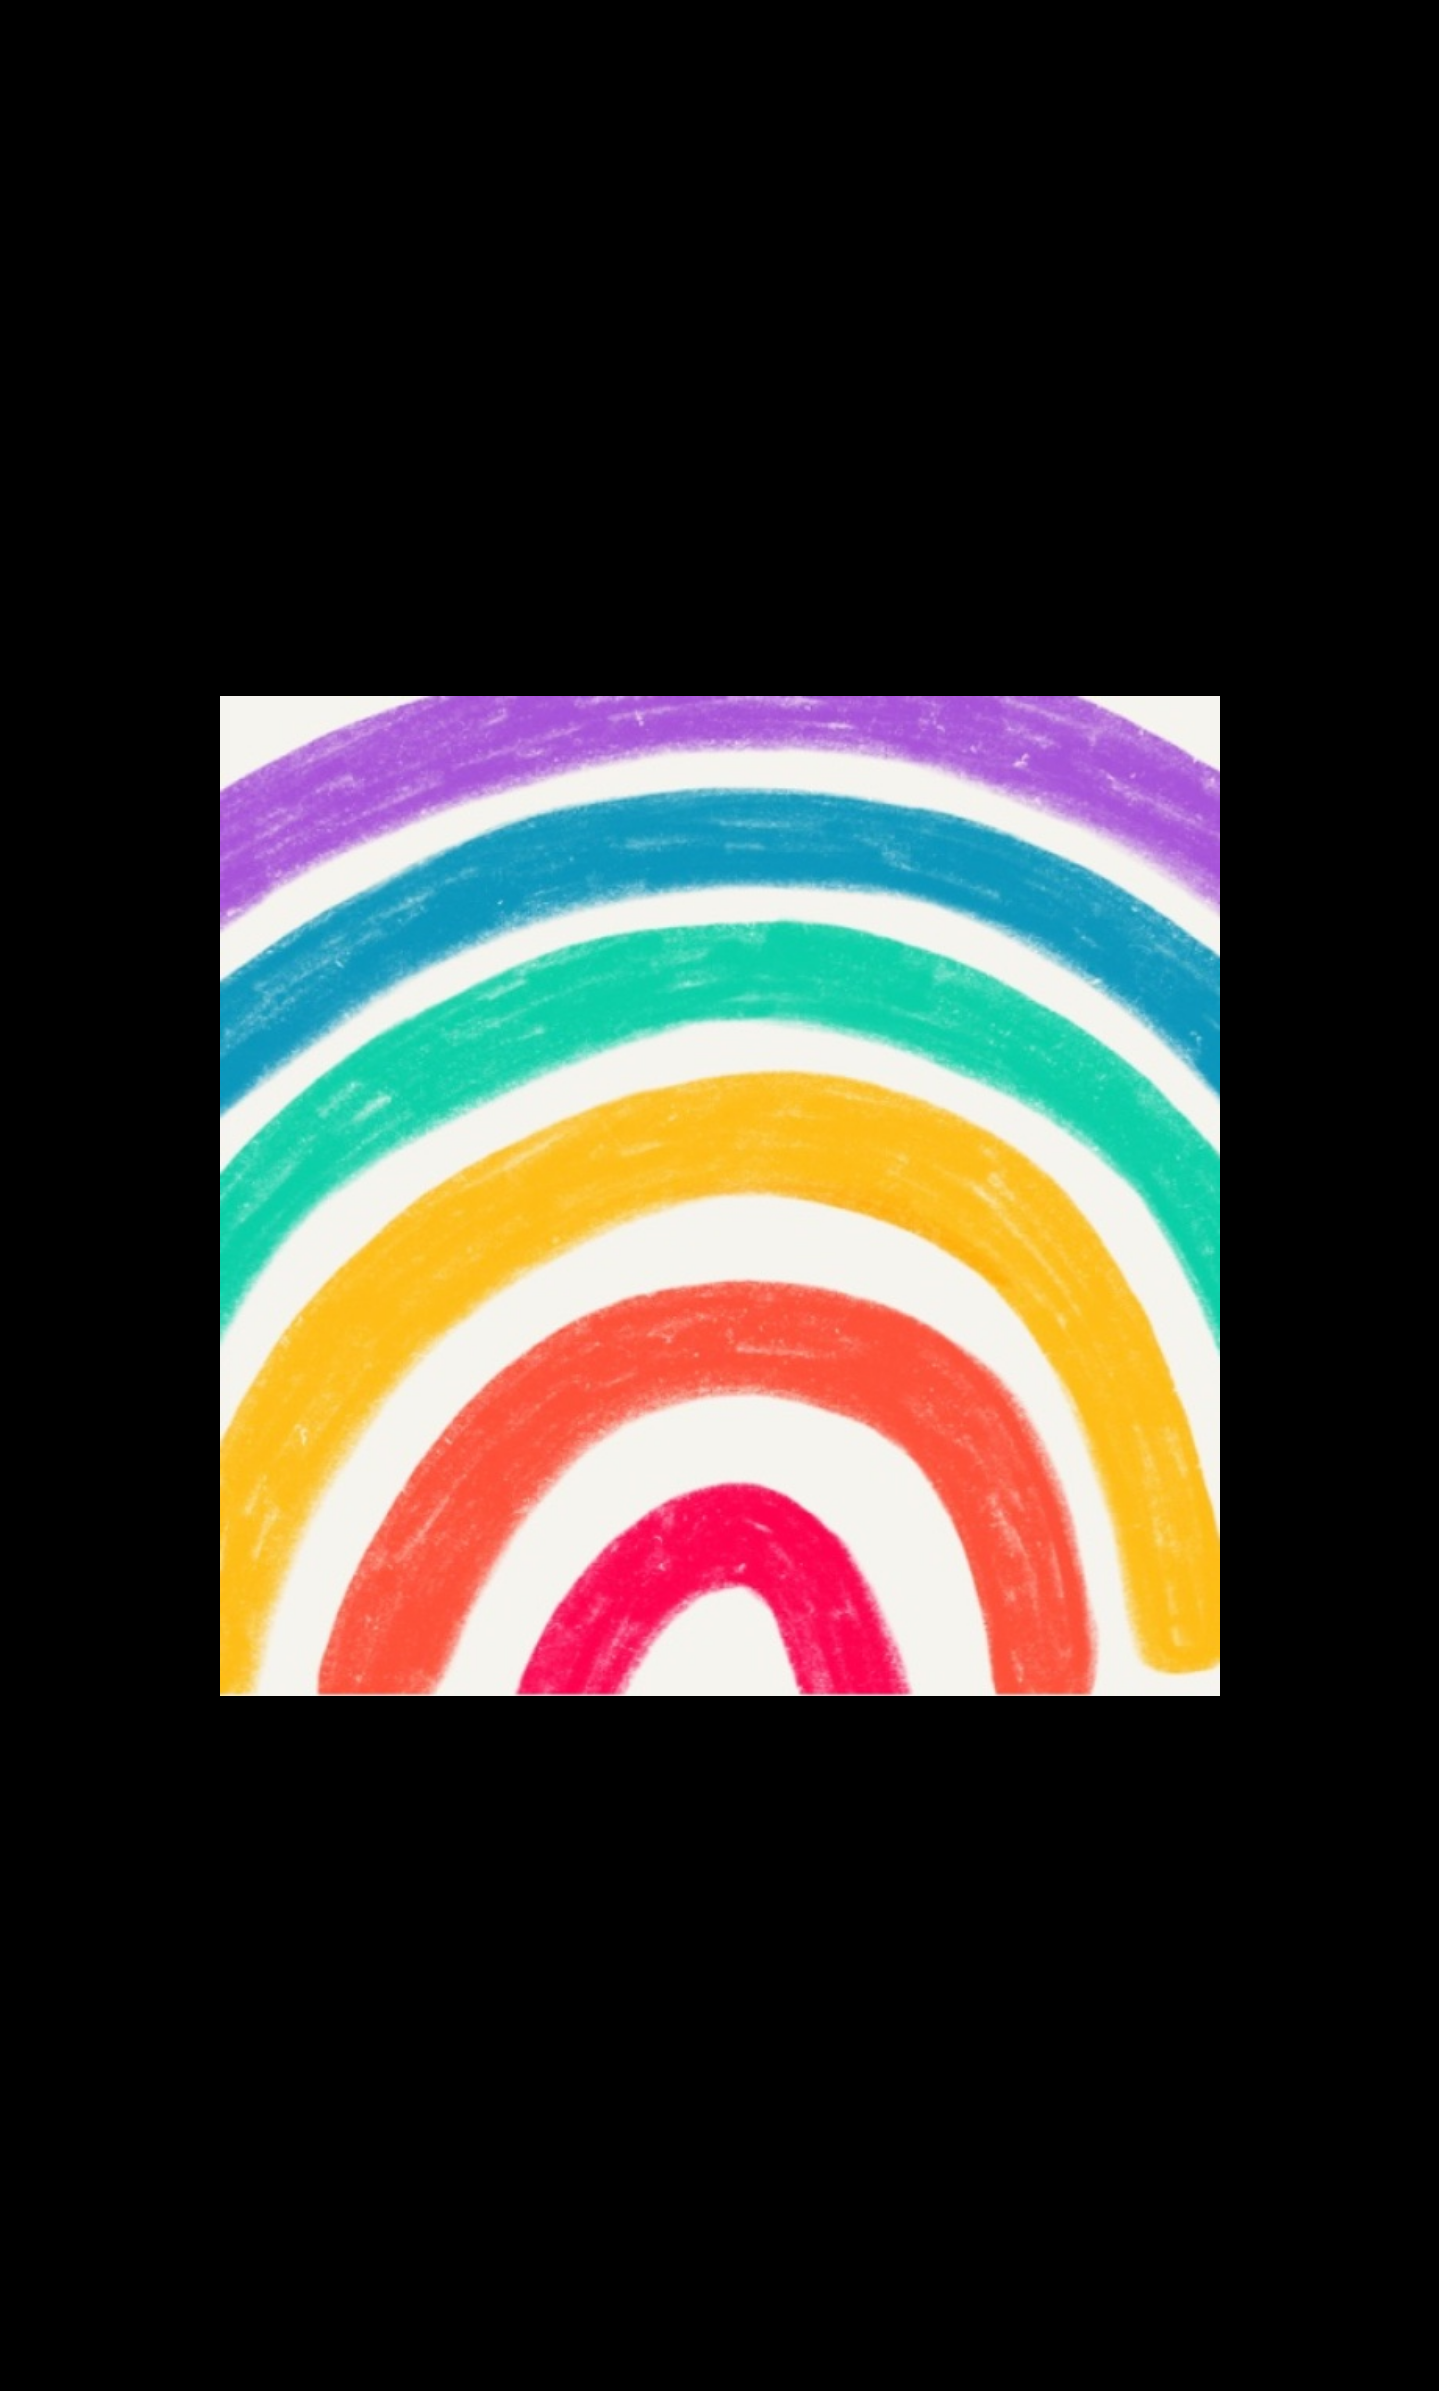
import math
import cairo

surface = cairo.ImageSurface(cairo.FORMAT_RGB24, 1439, 2391)
ctx = cairo.Context(surface)
options = cairo.FontOptions()
options.set_hint_metrics(cairo.HINT_METRICS_OFF)
options.set_hint_style(cairo.HINT_STYLE_NONE)
ctx.set_font_options(options)
ctx.set_miter_limit(4)


def set_color(code):
    ctx.set_source_rgb(*(v / 255 for v in bytes.fromhex(code[-6:])))


def draw_image(path, x, y, w, h):
    ctx.save()
    ctx.set_source_surface(cairo.ImageSurface.create_from_png(path), x, y)
    ctx.rectangle(x, y, w, h)
    ctx.fill()
    ctx.restore()


set_color("#000000")
ctx.paint()
draw_image("assets/img1.png", 220, 696, 1000, 1000)
surface.write_to_png("output.png")
